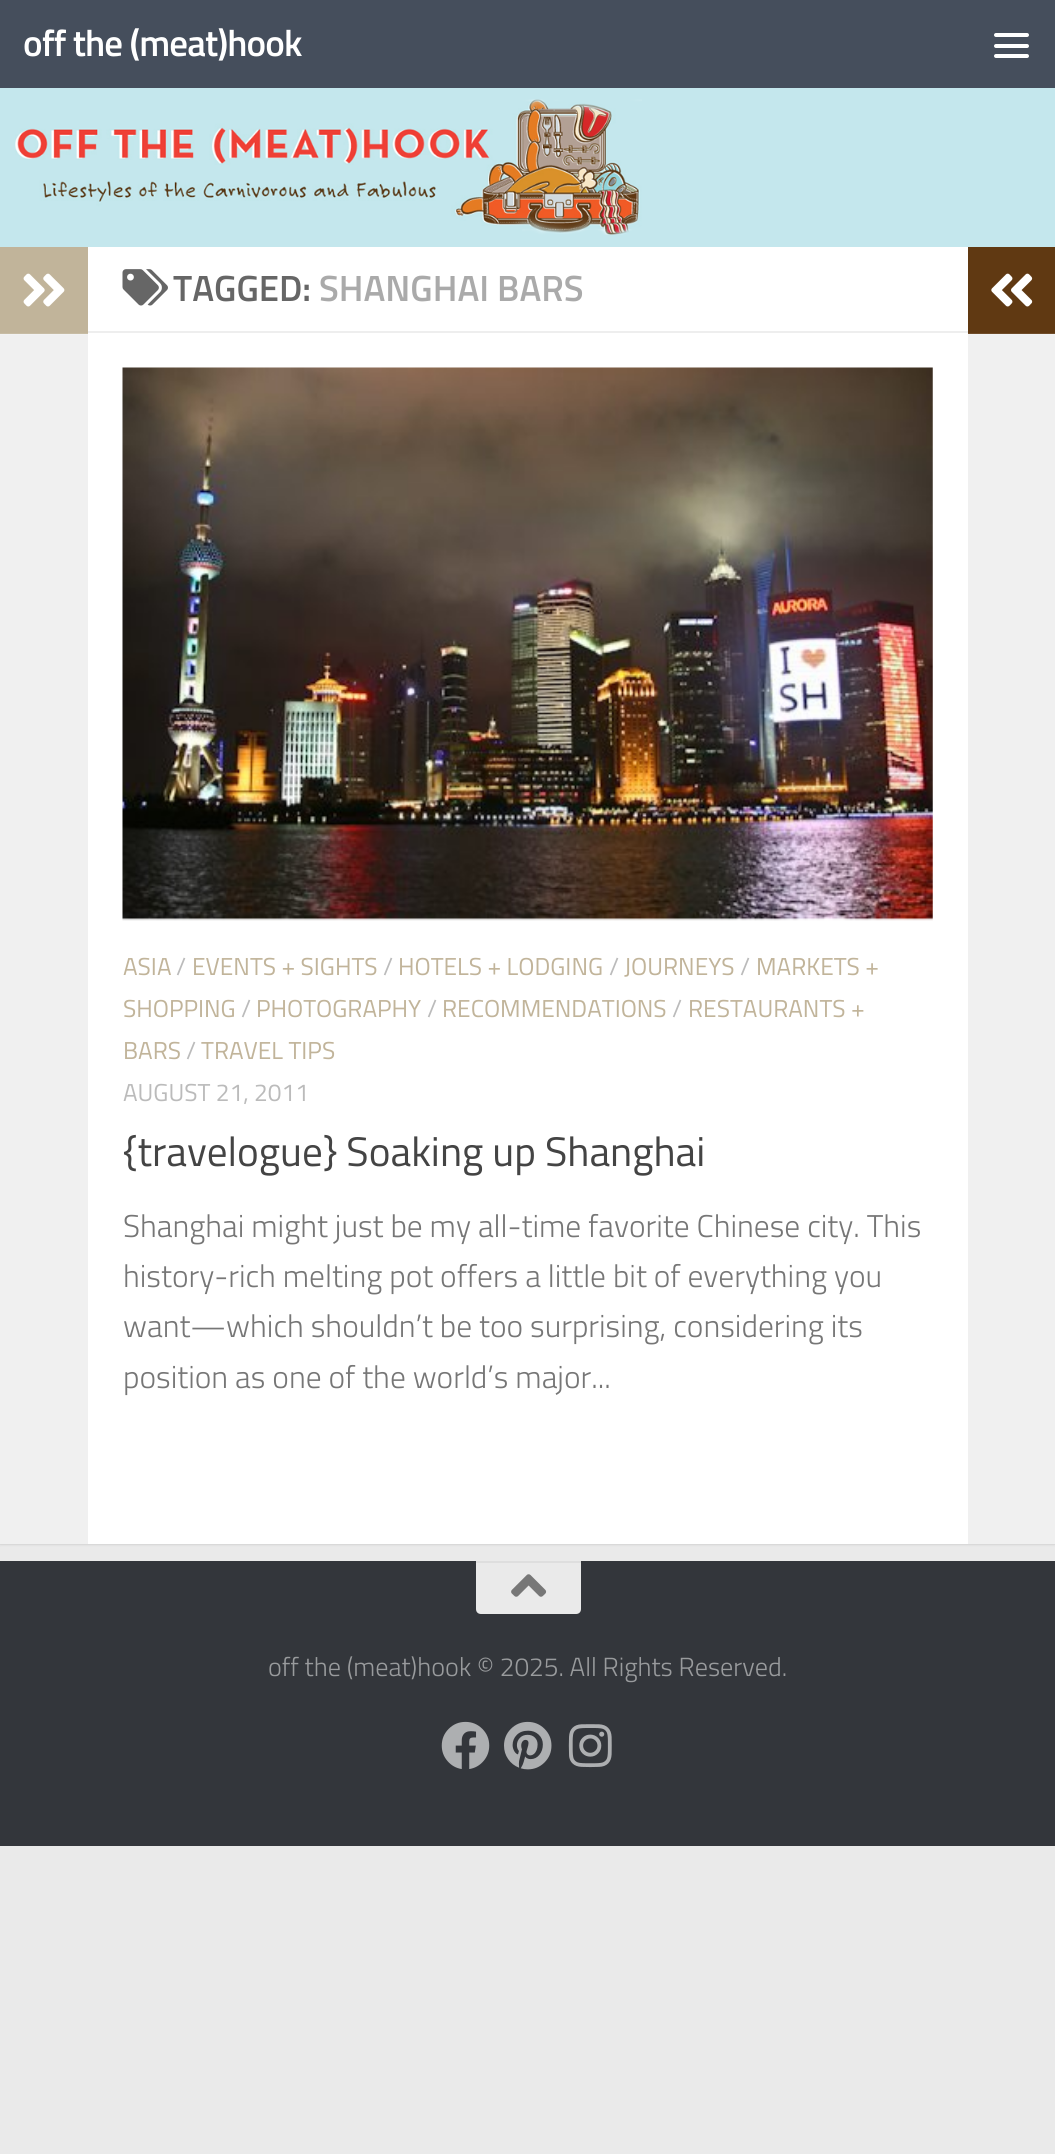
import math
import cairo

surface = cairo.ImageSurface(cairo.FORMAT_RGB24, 1055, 2154)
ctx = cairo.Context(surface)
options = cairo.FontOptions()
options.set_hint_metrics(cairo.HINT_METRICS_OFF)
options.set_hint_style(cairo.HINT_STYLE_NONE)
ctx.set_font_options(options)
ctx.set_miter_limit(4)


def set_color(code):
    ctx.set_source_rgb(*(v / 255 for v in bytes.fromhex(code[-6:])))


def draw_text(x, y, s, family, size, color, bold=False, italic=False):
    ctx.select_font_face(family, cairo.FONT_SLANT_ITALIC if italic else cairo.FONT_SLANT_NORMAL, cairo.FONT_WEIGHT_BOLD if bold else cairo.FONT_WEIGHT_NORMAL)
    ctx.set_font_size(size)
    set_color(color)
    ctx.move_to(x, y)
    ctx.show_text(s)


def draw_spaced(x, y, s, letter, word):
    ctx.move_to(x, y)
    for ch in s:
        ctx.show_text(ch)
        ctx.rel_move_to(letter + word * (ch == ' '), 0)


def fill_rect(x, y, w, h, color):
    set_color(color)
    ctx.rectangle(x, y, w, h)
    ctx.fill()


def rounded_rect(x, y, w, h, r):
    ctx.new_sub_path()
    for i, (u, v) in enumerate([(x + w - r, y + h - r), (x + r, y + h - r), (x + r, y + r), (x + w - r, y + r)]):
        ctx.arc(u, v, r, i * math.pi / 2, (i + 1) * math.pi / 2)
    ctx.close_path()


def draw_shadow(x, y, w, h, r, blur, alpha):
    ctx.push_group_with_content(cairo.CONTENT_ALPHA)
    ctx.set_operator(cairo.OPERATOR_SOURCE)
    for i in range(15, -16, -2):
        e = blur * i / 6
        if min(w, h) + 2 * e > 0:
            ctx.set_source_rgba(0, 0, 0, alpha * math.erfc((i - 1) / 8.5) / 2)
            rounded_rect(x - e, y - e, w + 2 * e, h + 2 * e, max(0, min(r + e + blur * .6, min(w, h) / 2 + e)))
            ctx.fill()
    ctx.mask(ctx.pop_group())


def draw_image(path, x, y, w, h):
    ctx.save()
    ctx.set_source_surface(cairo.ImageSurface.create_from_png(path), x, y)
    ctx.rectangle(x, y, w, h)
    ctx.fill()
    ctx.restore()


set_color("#eaeaea")
ctx.paint()
set_color("#000000")
draw_shadow(0, 249, 1055, 1296, 0, 1, 0.1)
fill_rect(0, 88, 1055, 159, "#c4e7ed")
fill_rect(0, 0, 1055, 88, "#454e5c")
ctx.select_font_face("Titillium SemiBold")
ctx.set_font_size(37)
set_color("#ffffff")
draw_spaced(23, 56, "off the (meat)hook", -0.9, 0)
rounded_rect(994, 33, 35, 4, 2)
ctx.fill()
rounded_rect(994, 44, 35, 4, 2)
ctx.fill()
rounded_rect(994, 54, 35, 4, 2)
ctx.fill()
draw_image("assets/img1.png", 15, 99, 627, 136)
fill_rect(88, 247, 880, 1297, "#ffffff")
fill_rect(0, 335, 88, 1209, "#f0f0f0")
fill_rect(0, 334, 88, 1, "#f2f2f2")
fill_rect(0, 247, 88, 86, "#c1b49a")
fill_rect(0, 333, 88, 1, "#c7bca4")
draw_image("assets/img2.png", 23, 273, 42, 34)
fill_rect(88, 331, 880, 2, "#eeeeee")
draw_image("assets/img3.png", 122, 269, 46, 37)
draw_text(173, 301, "TAGGED:", "Titillium SemiBold", 36.5, "#666666")
draw_text(319, 301, "SHANGHAI BARS", "Titillium SemiBold", 36.5, "#aaaaaa")
draw_image("assets/img4.png", 122, 367, 811, 554)
draw_text(123, 975, "ASIA", "Titillium", 24.5, "#c1b49a")
draw_text(176, 975, "/", "Titillium", 24.5, "#bbbbbb")
draw_text(192, 975, "EVENTS + SIGHTS", "Titillium", 24.5, "#c1b49a")
draw_text(383, 975, "/", "Titillium", 24.5, "#bbbbbb")
draw_text(398, 975, "HOTELS + LODGING", "Titillium", 24.5, "#c1b49a")
draw_text(609, 975, "/", "Titillium", 24.5, "#bbbbbb")
draw_text(624, 975, "JOURNEYS", "Titillium", 24.5, "#c1b49a")
draw_text(740, 975, "/", "Titillium", 24.5, "#bbbbbb")
draw_text(756, 975, "MARKETS +", "Titillium", 24.5, "#c1b49a")
draw_text(123, 1017, "SHOPPING", "Titillium", 24.5, "#c1b49a")
draw_text(241, 1017, "/", "Titillium", 24.5, "#bbbbbb")
draw_text(256, 1017, "PHOTOGRAPHY", "Titillium", 24.5, "#c1b49a")
draw_text(427, 1017, "/", "Titillium", 24.5, "#bbbbbb")
draw_text(442, 1017, "RECOMMENDATIONS", "Titillium", 24.5, "#c1b49a")
draw_text(672, 1017, "/", "Titillium", 24.5, "#bbbbbb")
draw_text(688, 1017, "RESTAURANTS +", "Titillium", 24.5, "#c1b49a")
draw_text(123, 1059, "BARS", "Titillium", 24.5, "#c1b49a")
draw_text(186, 1059, "/", "Titillium", 24.5, "#bbbbbb")
draw_text(201, 1059, "TRAVEL TIPS", "Titillium", 24.5, "#c1b49a")
draw_text(123, 1101, "AUGUST 21, 2011", "Titillium", 24.5, "#bbbbbb")
draw_text(123, 1166, "{travelogue} Soaking up Shanghai", "Titillium", 41.25, "#444444")
draw_text(123, 1237, "Shanghai might just be my all-time favorite Chinese city. This", "Titillium Light", 31.5, "#767676")
draw_text(123, 1287, "history-rich melting pot offers a little bit of everything you", "Titillium Light", 31.5, "#767676")
draw_text(123, 1337, "want—which shouldn’t be too surprising, considering its", "Titillium Light", 31.5, "#767676")
draw_text(123, 1388, "position as one of the world’s major...", "Titillium Light", 31.5, "#767676")
fill_rect(968, 247, 87, 86, "#603912")
fill_rect(968, 333, 87, 1, "#704d2a")
draw_image("assets/img5.png", 991, 273, 42, 34)
fill_rect(968, 335, 87, 1209, "#f0f0f0")
fill_rect(968, 334, 87, 1, "#f2f2f2")
fill_rect(0, 1561, 1055, 285, "#33363b")
set_color("#eaeaea")
ctx.new_path()
ctx.move_to(476, 1561)
ctx.line_to(581, 1561)
ctx.line_to(581, 1609)
ctx.curve_to(581, 1612, 579, 1614, 576, 1614)
ctx.line_to(481, 1614)
ctx.curve_to(478, 1614, 476, 1612, 476, 1609)
ctx.close_path()
ctx.fill()
fill_rect(476, 1561, 105, 2, "#dedede")
draw_image("assets/img6.png", 511, 1574, 36, 23)
draw_text(268, 1676, "off the (meat)hook © 2025. All Rights Reserved.", "Titillium Light", 26.25, "#999b9d")
draw_image("assets/img7.png", 441, 1721, 49, 48)
draw_image("assets/img8.png", 504, 1721, 48, 49)
draw_image("assets/img9.png", 568, 1724, 44, 44)
surface.write_to_png("output.png")
